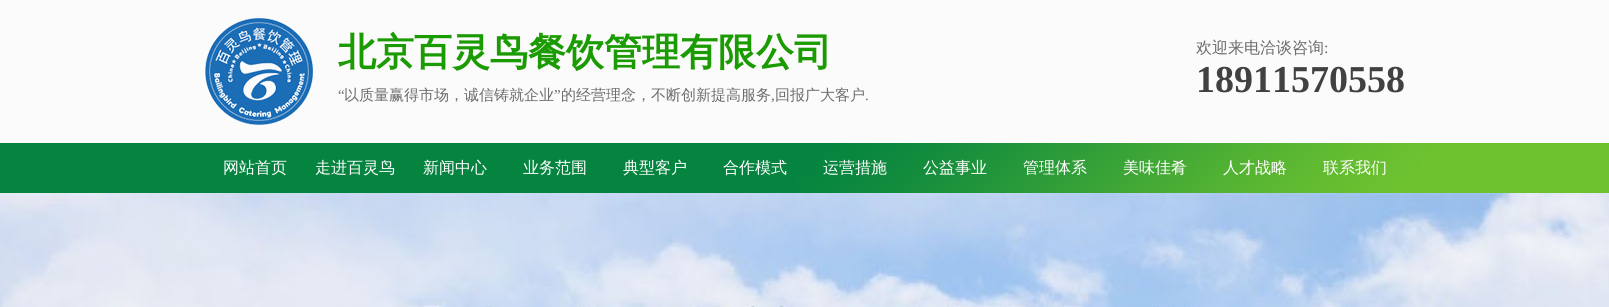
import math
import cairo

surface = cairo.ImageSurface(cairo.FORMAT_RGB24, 1609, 307)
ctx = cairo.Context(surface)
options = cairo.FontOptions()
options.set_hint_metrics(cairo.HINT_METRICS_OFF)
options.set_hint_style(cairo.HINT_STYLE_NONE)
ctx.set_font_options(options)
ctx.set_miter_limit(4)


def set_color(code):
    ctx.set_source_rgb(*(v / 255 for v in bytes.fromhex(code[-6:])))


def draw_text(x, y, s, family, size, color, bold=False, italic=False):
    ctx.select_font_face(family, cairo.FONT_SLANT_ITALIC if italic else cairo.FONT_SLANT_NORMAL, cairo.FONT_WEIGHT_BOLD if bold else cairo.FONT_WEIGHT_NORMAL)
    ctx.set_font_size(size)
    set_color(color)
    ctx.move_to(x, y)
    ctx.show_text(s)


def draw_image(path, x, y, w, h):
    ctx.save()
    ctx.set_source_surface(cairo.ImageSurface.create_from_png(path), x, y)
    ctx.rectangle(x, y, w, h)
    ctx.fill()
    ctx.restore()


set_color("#fbfbfb")
ctx.paint()
draw_image("assets/img1.png", 205, 18, 108, 107)
draw_text(338, 65, "北京百灵鸟餐饮管理有限公司", "WenQuanYi Zen Hei", 38, "#1a9b01", bold=True)
draw_text(338, 100, "“", "Liberation Serif", 15, "#6c6c6c")
draw_text(344, 100, "以质量赢得市场，诚信铸就企业", "WenQuanYi Zen Hei Medium", 15, "#6c6c6c")
draw_text(554, 100, "”", "Liberation Serif", 15, "#6c6c6c")
draw_text(561, 100, "的经营理念，不断创新提高服务", "WenQuanYi Zen Hei Medium", 15, "#6c6c6c")
draw_text(775, 100, "回报广大客户", "WenQuanYi Zen Hei Medium", 15, "#6c6c6c")
draw_text(771, 100, ",", "Liberation Serif", 15, "#6c6c6c")
draw_text(865, 100, ".", "Liberation Serif", 15, "#6c6c6c")
draw_text(1196, 53, "欢迎来电洽谈咨询", "WenQuanYi Zen Hei Medium", 16, "#6c6c6c")
draw_text(1324, 53, ":", "Liberation Serif", 16, "#6c6c6c")
draw_text(1196, 92, "18911570558", "Liberation Serif", 38, "#414141", bold=True)
draw_image("assets/img2.png", 0, 143, 1609, 50)
draw_text(223, 173, "网站首页", "WenQuanYi Zen Hei Medium", 16, "#ffffff")
draw_text(315, 173, "走进百灵鸟", "WenQuanYi Zen Hei Medium", 16, "#ffffff")
draw_text(423, 173, "新闻中心", "WenQuanYi Zen Hei Medium", 16, "#ffffff")
draw_text(523, 173, "业务范围", "WenQuanYi Zen Hei Medium", 16, "#ffffff")
draw_text(623, 173, "典型客户", "WenQuanYi Zen Hei Medium", 16, "#ffffff")
draw_text(723, 173, "合作模式", "WenQuanYi Zen Hei Medium", 16, "#ffffff")
draw_text(823, 173, "运营措施", "WenQuanYi Zen Hei Medium", 16, "#ffffff")
draw_text(923, 173, "公益事业", "WenQuanYi Zen Hei Medium", 16, "#ffffff")
draw_text(1023, 173, "管理体系", "WenQuanYi Zen Hei Medium", 16, "#ffffff")
draw_text(1123, 173, "美味佳肴", "WenQuanYi Zen Hei Medium", 16, "#ffffff")
draw_text(1223, 173, "人才战略", "WenQuanYi Zen Hei Medium", 16, "#ffffff")
draw_text(1323, 173, "联系我们", "WenQuanYi Zen Hei Medium", 16, "#ffffff")
draw_image("assets/img3.png", 0, 193, 1609, 114)
surface.write_to_png("output.png")
